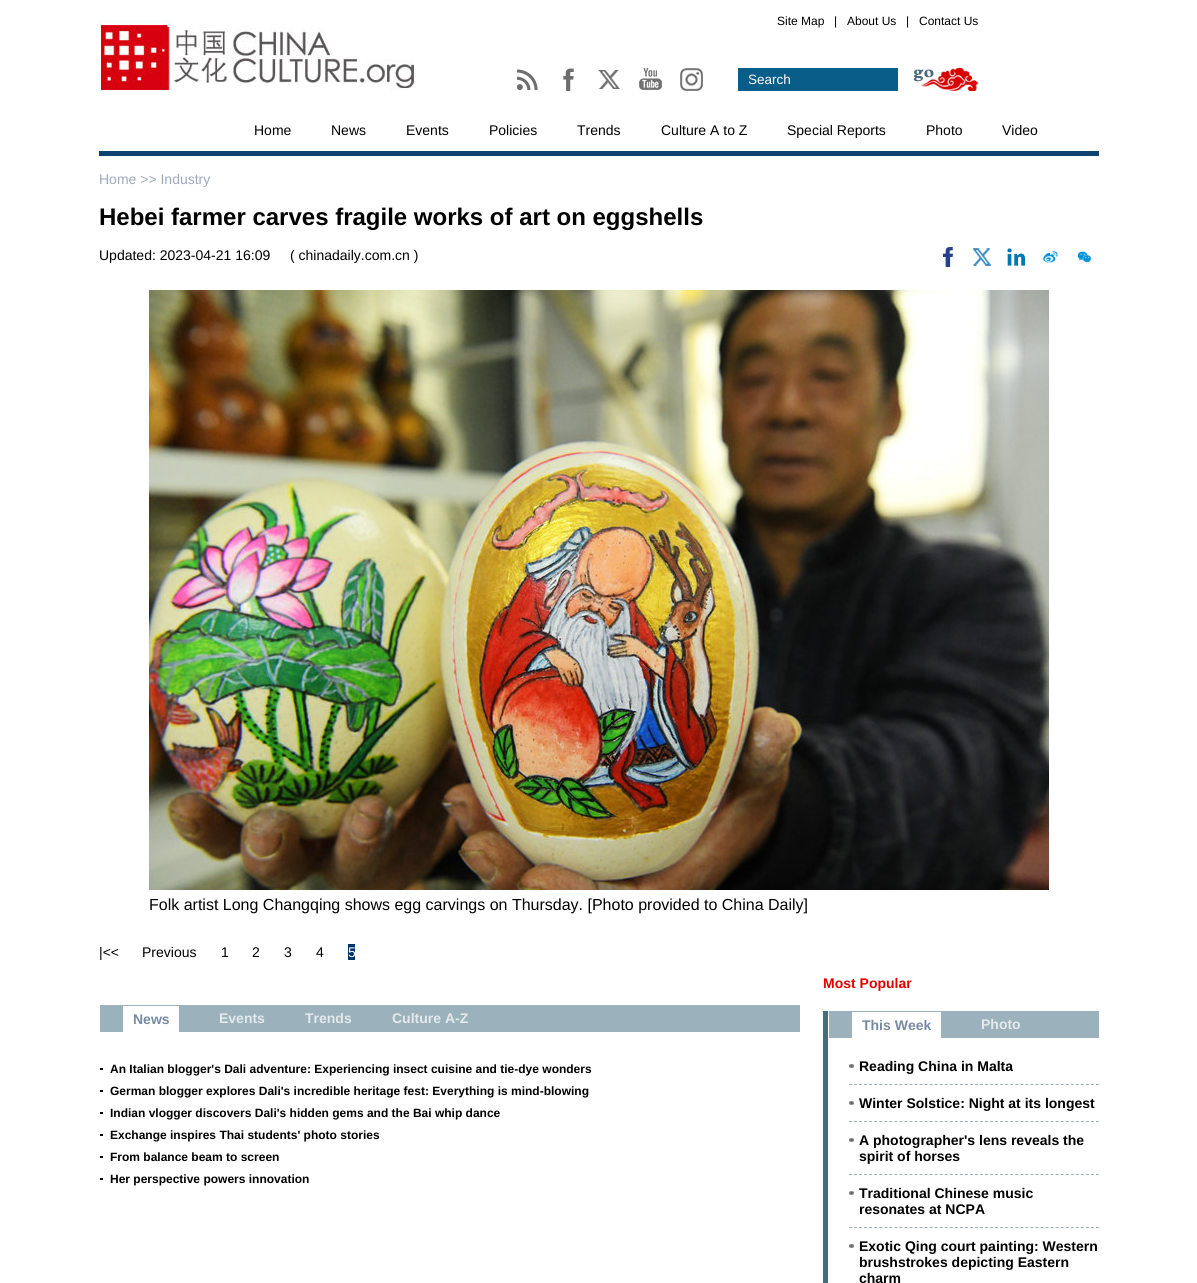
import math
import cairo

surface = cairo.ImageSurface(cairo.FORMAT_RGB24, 1197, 1283)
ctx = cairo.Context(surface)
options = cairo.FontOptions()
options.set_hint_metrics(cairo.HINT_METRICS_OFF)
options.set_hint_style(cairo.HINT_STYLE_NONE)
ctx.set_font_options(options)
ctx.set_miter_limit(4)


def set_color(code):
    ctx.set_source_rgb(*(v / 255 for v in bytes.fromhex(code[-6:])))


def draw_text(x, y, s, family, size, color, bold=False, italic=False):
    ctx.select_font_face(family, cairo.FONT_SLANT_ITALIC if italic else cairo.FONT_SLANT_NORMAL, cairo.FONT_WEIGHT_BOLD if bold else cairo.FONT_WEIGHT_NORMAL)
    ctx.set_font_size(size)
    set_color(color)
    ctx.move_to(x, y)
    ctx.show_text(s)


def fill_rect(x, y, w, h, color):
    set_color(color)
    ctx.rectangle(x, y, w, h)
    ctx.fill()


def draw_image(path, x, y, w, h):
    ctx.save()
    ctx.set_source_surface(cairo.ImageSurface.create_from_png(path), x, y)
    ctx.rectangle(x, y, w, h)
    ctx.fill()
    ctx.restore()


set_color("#ffffff")
ctx.paint()
draw_image("assets/img1.png", 99, 19, 315, 72)
draw_text(777, 25, "Site Map", "Liberation Sans", 12, "#000000")
draw_text(834, 25, "|", "Liberation Sans", 12, "#000000")
draw_text(847, 25, "About Us", "Liberation Sans", 12, "#000000")
draw_text(906, 25, "|", "Liberation Sans", 12, "#000000")
draw_text(919, 25, "Contact Us", "Liberation Sans", 12, "#000000")
draw_image("assets/img2.png", 517, 69, 21, 22)
draw_image("assets/img3.png", 563, 68, 11, 23)
draw_image("assets/img4.png", 598, 70, 22, 19)
draw_image("assets/img5.png", 639, 68, 23, 23)
draw_image("assets/img6.png", 680, 68, 23, 23)
fill_rect(738, 68, 160, 23, "#095d89")
draw_text(748, 84, "Search", "Liberation Sans", 13.5, "#ffffff")
draw_image("assets/img7.png", 913, 68, 65, 23)
fill_rect(99, 151, 1000, 5, "#0e426f")
draw_text(254, 135, "Home", "Liberation Sans", 14, "#000000")
draw_text(331, 135, "News", "Liberation Sans", 14, "#000000")
draw_text(406, 135, "Events", "Liberation Sans", 14, "#000000")
draw_text(489, 135, "Policies", "Liberation Sans", 14, "#000000")
draw_text(577, 135, "Trends", "Liberation Sans", 14, "#000000")
draw_text(661, 135, "Culture A to Z", "Liberation Sans", 14, "#000000")
draw_text(787, 135, "Special Reports", "Liberation Sans", 14, "#000000")
draw_text(926, 135, "Photo", "Liberation Sans", 14, "#000000")
draw_text(1002, 135, "Video", "Liberation Sans", 14, "#000000")
draw_text(99, 184, "Home >> Industry", "Liberation Sans", 14, "#9daaba")
draw_text(99, 225, "Hebei farmer carves fragile works of art on eggshells", "Liberation Sans", 24, "#000000", bold=True)
draw_text(99, 260, "Updated: 2023-04-21 16:09", "Liberation Sans", 14, "#000000")
draw_text(290, 260, "( chinadaily.com.cn )", "Liberation Sans", 14, "#000000")
draw_image("assets/img8.png", 943, 247, 10, 20)
draw_image("assets/img9.png", 973, 248, 18, 18)
draw_image("assets/img10.png", 1007, 248, 18, 18)
draw_image("assets/img11.png", 1043, 251, 15, 12)
draw_image("assets/img12.png", 1077, 251, 15, 12)
draw_image("assets/img13.png", 149, 290, 900, 600)
draw_text(149, 910, "Folk artist Long Changqing shows egg carvings on Thursday. [Photo provided to China Daily]", "Liberation Sans", 16, "#000000")
draw_text(99, 957, "|<<", "Liberation Sans", 14, "#000000")
draw_text(142, 957, "Previous", "Liberation Sans", 14, "#000000")
draw_text(221, 957, "1", "Liberation Sans", 14, "#000000")
draw_text(252, 957, "2", "Liberation Sans", 14, "#000000")
draw_text(284, 957, "3", "Liberation Sans", 14, "#000000")
draw_text(316, 957, "4", "Liberation Sans", 14, "#000000")
fill_rect(348, 944, 7, 16, "#003366")
draw_text(348, 957, "5", "Liberation Sans", 14, "#ffffff")
fill_rect(100, 1005, 700, 27, "#9bb1bc")
fill_rect(123, 1006, 56, 26, "#ffffff")
draw_text(133, 1024, "News", "Liberation Sans", 14, "#778aa2", bold=True)
draw_text(219, 1023, "Events", "Liberation Sans", 14, "#e4e9ec", bold=True)
draw_text(305, 1023, "Trends", "Liberation Sans", 14, "#e4e9ec", bold=True)
draw_text(392, 1023, "Culture A-Z", "Liberation Sans", 14, "#e4e9ec", bold=True)
fill_rect(100, 1068, 3, 2, "#000000")
draw_text(110, 1073, "An Italian blogger's Dali adventure: Experiencing insect cuisine and tie-dye wonders", "Liberation Sans", 12, "#000000", bold=True)
fill_rect(100, 1090, 3, 2, "#000000")
draw_text(110, 1095, "German blogger explores Dali's incredible heritage fest: Everything is mind-blowing", "Liberation Sans", 12, "#000000", bold=True)
fill_rect(100, 1112, 3, 2, "#000000")
draw_text(110, 1117, "Indian vlogger discovers Dali's hidden gems and the Bai whip dance", "Liberation Sans", 12, "#000000", bold=True)
fill_rect(100, 1134, 3, 2, "#000000")
draw_text(110, 1139, "Exchange inspires Thai students' photo stories", "Liberation Sans", 12, "#000000", bold=True)
fill_rect(100, 1156, 3, 2, "#000000")
draw_text(110, 1161, "From balance beam to screen", "Liberation Sans", 12, "#000000", bold=True)
fill_rect(100, 1178, 3, 2, "#000000")
draw_text(110, 1183, "Her perspective powers innovation", "Liberation Sans", 12, "#000000", bold=True)
draw_text(823, 988, "Most Popular", "Liberation Sans", 14, "#e30000", bold=True)
fill_rect(823, 1011, 5, 272, "#466c80")
fill_rect(829, 1011, 270, 27, "#9bb1bc")
fill_rect(852, 1012, 89, 26, "#ffffff")
draw_text(862, 1030, "This Week", "Liberation Sans", 14, "#778aa2", bold=True)
draw_text(981, 1029, "Photo", "Liberation Sans", 14, "#e4e9ec", bold=True)
draw_image("assets/img14.png", 849, 1064, 5, 4)
ctx.new_path()
ctx.move_to(849, 1084.5)
ctx.line_to(1099, 1084.5)
set_color("#9bb1bc")
ctx.set_line_width(1)
ctx.set_dash([3, 2.04])
ctx.stroke()
draw_text(859, 1071, "Reading China in Malta", "Liberation Sans", 14, "#000000", bold=True)
draw_image("assets/img14.png", 849, 1101, 5, 4)
ctx.new_path()
ctx.move_to(849, 1121.5)
ctx.line_to(1099, 1121.5)
set_color("#9bb1bc")
ctx.stroke()
draw_text(859, 1108, "Winter Solstice: Night at its longest", "Liberation Sans", 14, "#000000", bold=True)
draw_image("assets/img14.png", 849, 1138, 5, 4)
ctx.new_path()
ctx.move_to(849, 1174.5)
ctx.line_to(1099, 1174.5)
set_color("#9bb1bc")
ctx.stroke()
draw_text(859, 1145, "A photographer's lens reveals the", "Liberation Sans", 14, "#000000", bold=True)
draw_text(859, 1161, "spirit of horses", "Liberation Sans", 14, "#000000", bold=True)
draw_image("assets/img14.png", 849, 1191, 5, 4)
ctx.new_path()
ctx.move_to(849, 1227.5)
ctx.line_to(1099, 1227.5)
set_color("#9bb1bc")
ctx.stroke()
draw_text(859, 1198, "Traditional Chinese music", "Liberation Sans", 14, "#000000", bold=True)
draw_text(859, 1214, "resonates at NCPA", "Liberation Sans", 14, "#000000", bold=True)
draw_image("assets/img14.png", 849, 1244, 5, 4)
draw_text(859, 1251, "Exotic Qing court painting: Western", "Liberation Sans", 14, "#000000", bold=True)
draw_text(859, 1267, "brushstrokes depicting Eastern", "Liberation Sans", 14, "#000000", bold=True)
draw_text(859, 1283, "charm", "Liberation Sans", 14, "#000000", bold=True)
surface.write_to_png("output.png")
